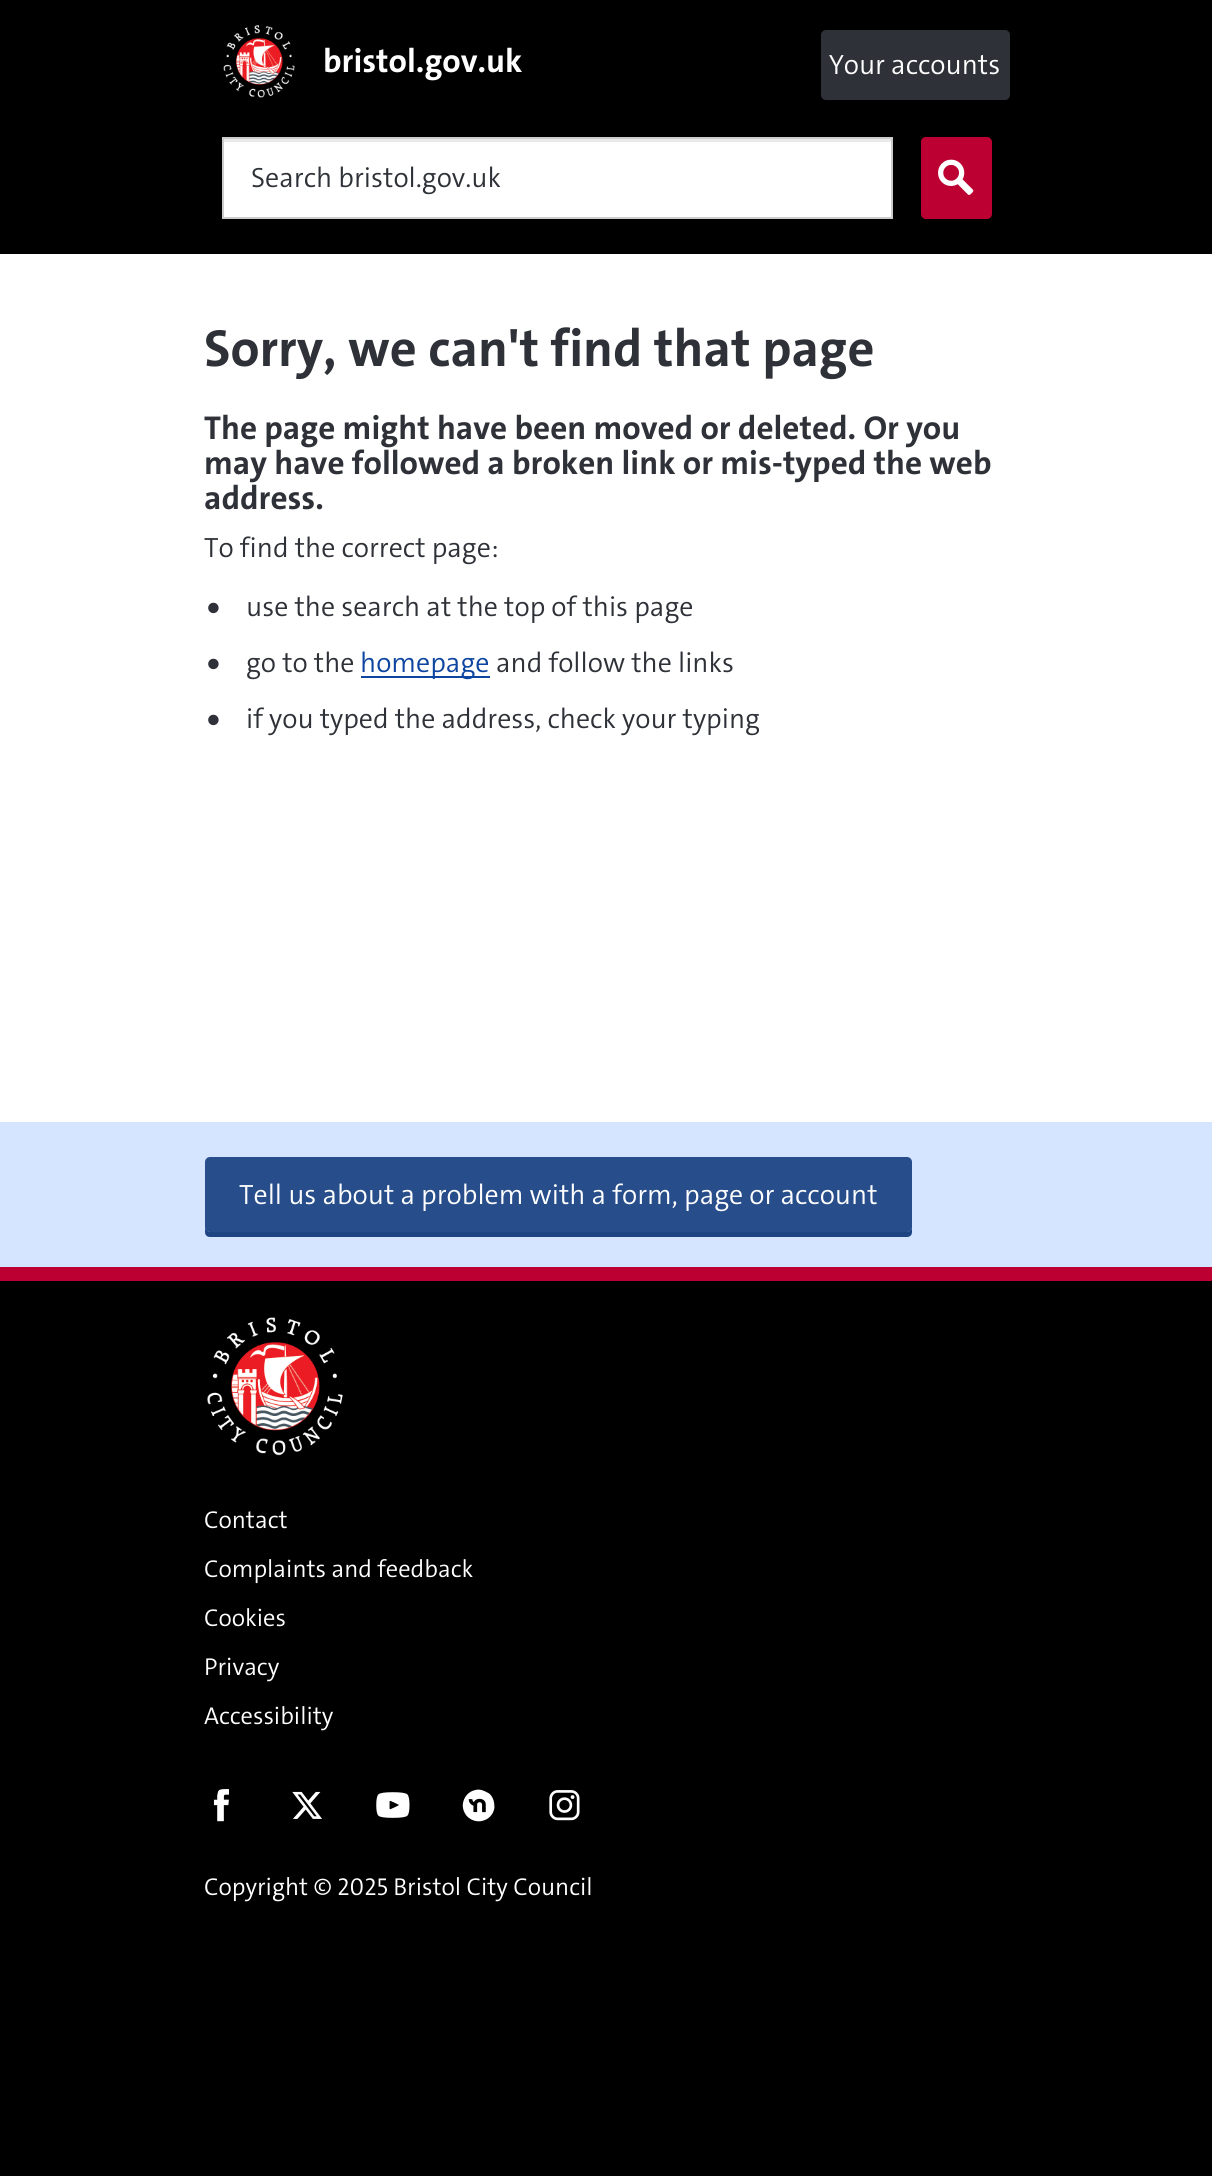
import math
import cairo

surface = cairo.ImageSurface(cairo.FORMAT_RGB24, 1212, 2176)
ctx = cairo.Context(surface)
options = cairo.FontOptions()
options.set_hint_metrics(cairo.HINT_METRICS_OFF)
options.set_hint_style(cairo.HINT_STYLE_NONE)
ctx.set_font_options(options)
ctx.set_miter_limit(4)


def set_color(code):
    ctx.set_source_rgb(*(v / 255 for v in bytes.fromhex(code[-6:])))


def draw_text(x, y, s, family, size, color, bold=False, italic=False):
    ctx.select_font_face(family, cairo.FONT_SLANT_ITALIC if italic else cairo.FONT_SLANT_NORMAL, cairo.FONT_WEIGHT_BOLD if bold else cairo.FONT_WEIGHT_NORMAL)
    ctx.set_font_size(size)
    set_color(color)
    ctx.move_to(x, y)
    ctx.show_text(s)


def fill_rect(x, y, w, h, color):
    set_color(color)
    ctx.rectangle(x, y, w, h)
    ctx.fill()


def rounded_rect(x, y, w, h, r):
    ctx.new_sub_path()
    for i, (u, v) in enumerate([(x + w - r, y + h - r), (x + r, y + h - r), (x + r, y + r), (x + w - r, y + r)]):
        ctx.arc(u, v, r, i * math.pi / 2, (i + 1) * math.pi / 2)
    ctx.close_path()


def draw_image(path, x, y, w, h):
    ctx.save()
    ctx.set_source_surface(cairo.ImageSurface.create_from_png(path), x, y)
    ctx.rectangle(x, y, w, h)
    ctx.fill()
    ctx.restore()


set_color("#ffffff")
ctx.paint()
fill_rect(0, 0, 1212, 254, "#000000")
draw_image("assets/img1.png", 223, 25, 72, 73)
draw_text(323, 72, "bristol.gov.uk", "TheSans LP", 33.25, "#ffffff", bold=True)
set_color("#2e3137")
rounded_rect(821, 30, 189, 70, 5)
ctx.fill()
draw_text(829, 74, "Your accounts", "TheSans LP Light", 28, "#ffffff")
fill_rect(224, 142, 667, 75, "#ffffff")
fill_rect(224, 139, 667, 3, "#eaeaea")
ctx.rectangle(223, 138, 669, 80)
set_color("#cccccc")
ctx.stroke()
draw_text(251, 187, "Search bristol.gov.uk", "TheSans LP Light", 28, "#2e3137")
set_color("#bc0031")
rounded_rect(921, 137, 71, 82, 5)
ctx.fill()
draw_image("assets/img2.png", 938, 159, 36, 36)
draw_text(204, 366, "Sorry, we can't find that page", "TheSans LP", 52.5, "#2e3137", bold=True)
draw_text(204, 439, "The page might have been moved or deleted. Or you", "TheSans LP", 33.25, "#2e3137", bold=True)
draw_text(204, 474, "may have followed a broken link or mis-typed the web", "TheSans LP", 33.25, "#2e3137", bold=True)
draw_text(204, 509, "address.", "TheSans LP", 33.25, "#2e3137", bold=True)
draw_text(204, 557, "To find the correct page:", "TheSans LP Light", 28, "#2e3137")
draw_text(204, 621, "•", "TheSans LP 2", 42, "#2e3137", bold=True)
draw_text(246, 616, "use the search at the top of this page", "TheSans LP Light", 28, "#2e3137")
draw_text(204, 677, "•", "TheSans LP 2", 42, "#2e3137", bold=True)
draw_text(246, 672, "go to the", "TheSans LP Light", 28, "#2e3137")
fill_rect(361, 676, 129, 2, "#0d45a0")
draw_text(360, 672, "homepage", "TheSans LP Light", 28, "#0d45a0")
draw_text(496, 672, "and follow the links", "TheSans LP Light", 28, "#2e3137")
draw_text(204, 733, "•", "TheSans LP 2", 42, "#2e3137", bold=True)
draw_text(246, 728, "if you typed the address, check your typing", "TheSans LP Light", 28, "#2e3137")
fill_rect(0, 1122, 1212, 145, "#d5e5ff")
set_color("#1f4482")
ctx.new_path()
ctx.move_to(205, 1228)
ctx.line_to(205, 1232)
ctx.curve_to(205, 1235, 207, 1237, 210, 1237)
ctx.line_to(907, 1237)
ctx.curve_to(910, 1237, 912, 1235, 912, 1232)
ctx.line_to(912, 1165)
ctx.line_to(912, 1227)
ctx.curve_to(912, 1230, 909, 1232, 906, 1232)
ctx.line_to(210, 1232)
ctx.curve_to(208, 1232, 206, 1230, 205, 1228)
ctx.close_path()
ctx.fill()
set_color("#274d8b")
rounded_rect(205, 1157, 707, 75, 5)
ctx.fill()
draw_text(239, 1204, "Tell us about a problem with a form, page or account", "TheSans LP Light", 28, "#ffffff")
fill_rect(0, 1281, 1212, 895, "#000000")
fill_rect(0, 1267, 1212, 14, "#bc0031")
draw_image("assets/img3.png", 207, 1317, 136, 139)
draw_text(204, 1528, "Contact", "TheSans LP Light", 24.5, "#ffffff")
draw_text(204, 1577, "Complaints and feedback", "TheSans LP Light", 24.5, "#ffffff")
draw_text(204, 1626, "Cookies", "TheSans LP Light", 24.5, "#ffffff")
draw_text(204, 1675, "Privacy", "TheSans LP Light", 24.5, "#ffffff")
draw_text(204, 1724, "Accessibility", "TheSans LP Light", 24.5, "#ffffff")
draw_image("assets/img4.png", 213, 1789, 16, 33)
draw_image("assets/img5.png", 292, 1791, 30, 28)
draw_image("assets/img6.png", 376, 1792, 34, 26)
draw_image("assets/img7.png", 462, 1789, 33, 33)
draw_image("assets/img8.png", 549, 1790, 31, 31)
draw_text(204, 1895, "Copyright © 2025 Bristol City Council", "TheSans LP Light", 24.5, "#ffffff")
surface.write_to_png("output.png")
